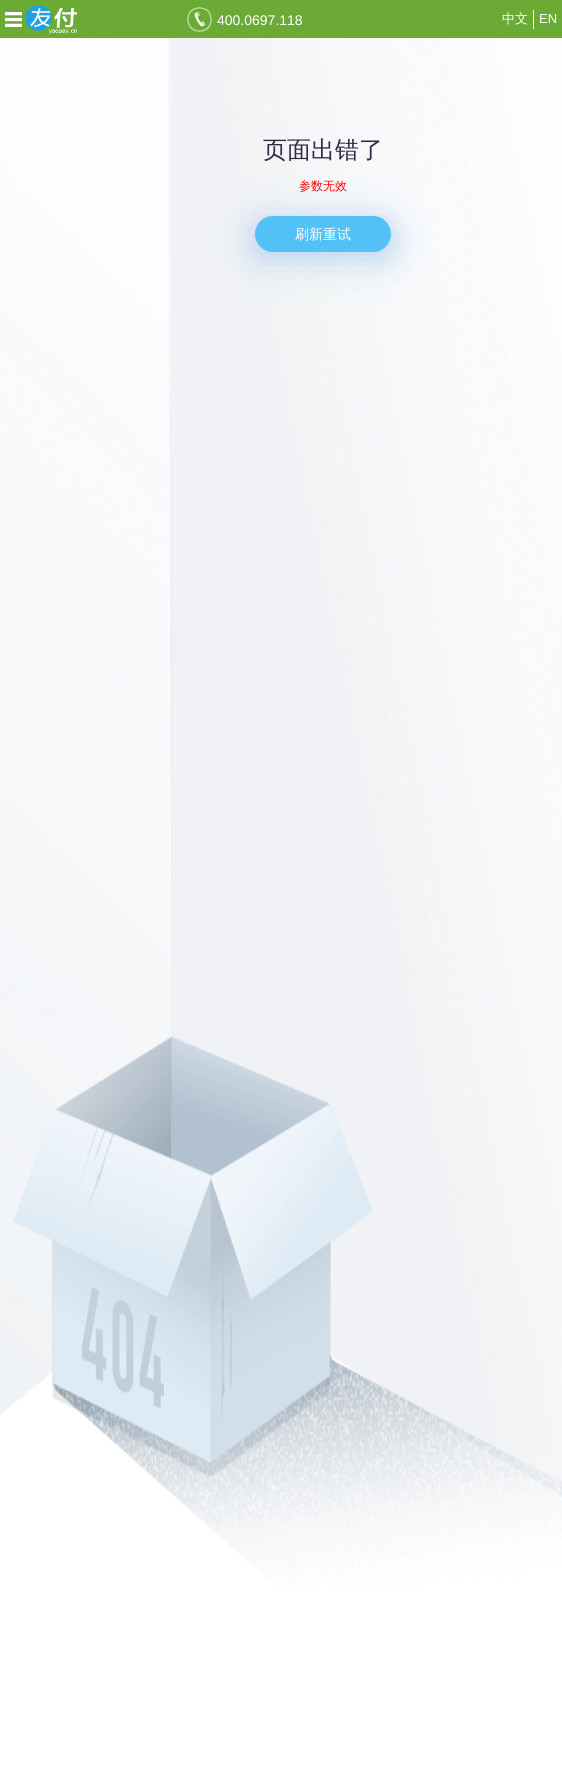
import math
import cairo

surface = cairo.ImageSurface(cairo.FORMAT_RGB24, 562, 1790)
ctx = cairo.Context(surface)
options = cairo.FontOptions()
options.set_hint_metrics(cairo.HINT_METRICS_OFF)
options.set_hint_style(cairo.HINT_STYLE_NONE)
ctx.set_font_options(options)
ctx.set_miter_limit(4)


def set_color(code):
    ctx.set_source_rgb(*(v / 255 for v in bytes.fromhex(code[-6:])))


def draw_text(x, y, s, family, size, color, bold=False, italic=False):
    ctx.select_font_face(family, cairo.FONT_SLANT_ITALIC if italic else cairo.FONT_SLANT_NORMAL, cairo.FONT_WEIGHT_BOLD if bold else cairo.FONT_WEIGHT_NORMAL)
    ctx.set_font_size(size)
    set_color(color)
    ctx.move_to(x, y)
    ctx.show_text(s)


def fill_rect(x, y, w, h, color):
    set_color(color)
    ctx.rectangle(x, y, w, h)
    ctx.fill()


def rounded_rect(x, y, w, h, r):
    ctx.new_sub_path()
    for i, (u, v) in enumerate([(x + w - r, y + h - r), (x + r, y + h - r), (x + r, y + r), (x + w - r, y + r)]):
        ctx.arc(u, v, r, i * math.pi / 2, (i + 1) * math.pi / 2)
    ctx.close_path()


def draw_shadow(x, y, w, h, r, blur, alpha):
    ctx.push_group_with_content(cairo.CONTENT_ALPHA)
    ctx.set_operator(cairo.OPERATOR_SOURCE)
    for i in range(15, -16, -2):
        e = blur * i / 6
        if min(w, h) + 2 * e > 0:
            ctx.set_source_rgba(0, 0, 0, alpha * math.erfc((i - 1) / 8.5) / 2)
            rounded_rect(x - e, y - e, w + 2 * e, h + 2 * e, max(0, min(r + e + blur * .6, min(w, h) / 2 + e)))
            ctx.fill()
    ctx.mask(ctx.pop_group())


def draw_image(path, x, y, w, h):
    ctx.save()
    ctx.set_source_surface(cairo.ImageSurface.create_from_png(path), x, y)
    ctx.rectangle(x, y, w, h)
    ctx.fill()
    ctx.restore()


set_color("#ffffff")
ctx.paint()
fill_rect(0, 0, 562, 38, "#6bab35")
draw_image("assets/img1.png", 5, 12, 17, 15)
draw_image("assets/img2.png", 25, 5, 52, 29)
draw_image("assets/img3.png", 187, 7, 25, 25)
draw_text(217, 25, "400.0697.118", "Liberation Sans", 14, "#ffffff")
fill_rect(533, 10, 1, 19, "#ffffff")
draw_text(502, 23, "中文", "WenQuanYi Zen Hei Medium", 13, "#ffffff")
draw_text(539, 23, "EN", "Liberation Sans", 13, "#ffffff")
draw_image("assets/img4.png", 0, 38, 562, 1549)
draw_text(263, 158, "页面出错了", "WenQuanYi Zen Hei Medium", 24, "#302c48")
draw_text(299, 190, "参数无效", "WenQuanYi Zen Hei Medium", 12, "#ff0000")
set_color("#b3cfef")
draw_shadow(255, 222, 136, 36, 18, 17.5, 1)
set_color("#52c2f6")
rounded_rect(255, 216, 136, 36, 18)
ctx.fill()
draw_text(295, 239, "刷新重试", "WenQuanYi Zen Hei Medium", 14, "#ffffff")
surface.write_to_png("output.png")
